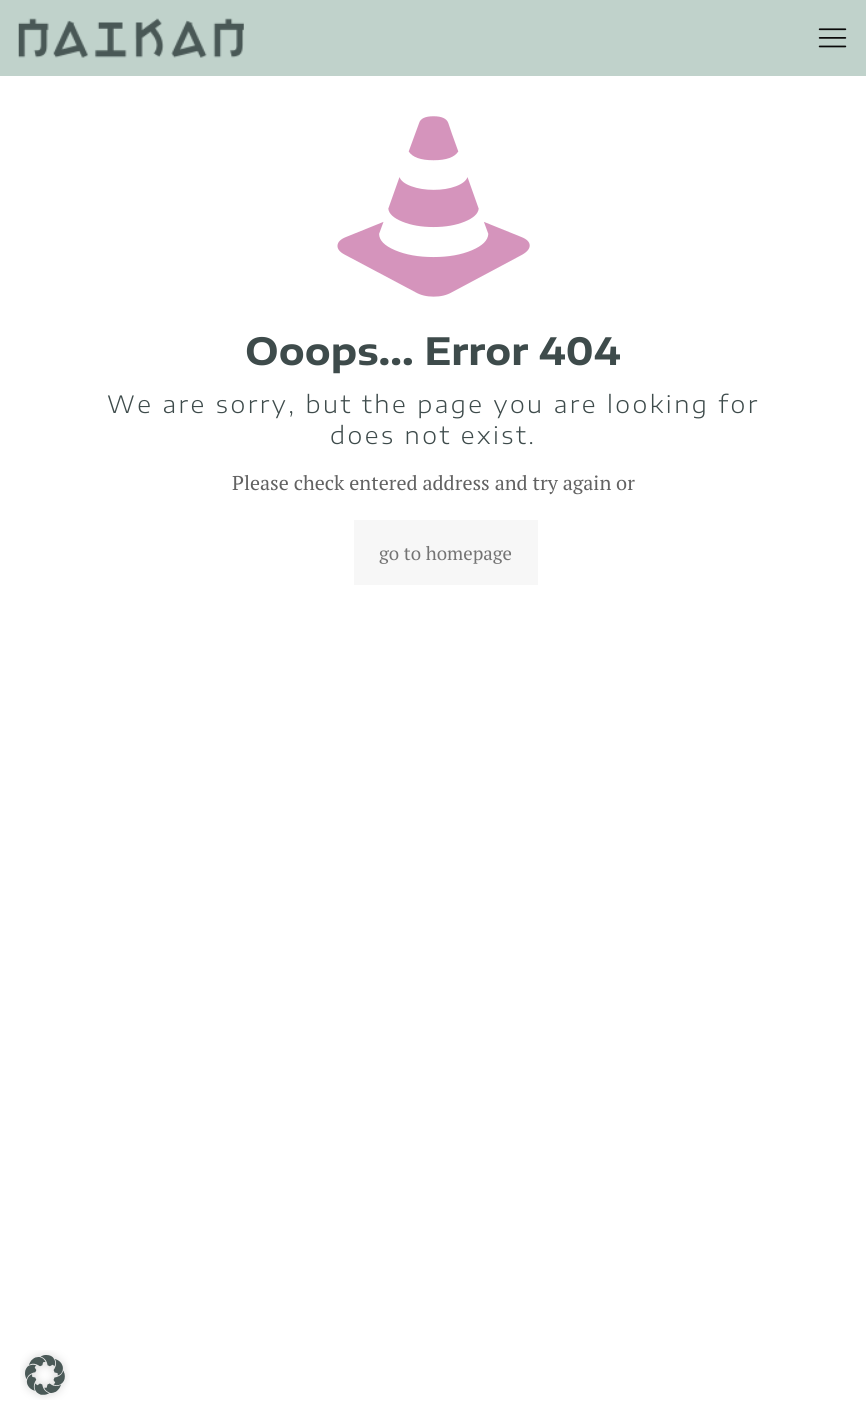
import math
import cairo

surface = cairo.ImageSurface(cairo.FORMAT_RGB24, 866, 1420)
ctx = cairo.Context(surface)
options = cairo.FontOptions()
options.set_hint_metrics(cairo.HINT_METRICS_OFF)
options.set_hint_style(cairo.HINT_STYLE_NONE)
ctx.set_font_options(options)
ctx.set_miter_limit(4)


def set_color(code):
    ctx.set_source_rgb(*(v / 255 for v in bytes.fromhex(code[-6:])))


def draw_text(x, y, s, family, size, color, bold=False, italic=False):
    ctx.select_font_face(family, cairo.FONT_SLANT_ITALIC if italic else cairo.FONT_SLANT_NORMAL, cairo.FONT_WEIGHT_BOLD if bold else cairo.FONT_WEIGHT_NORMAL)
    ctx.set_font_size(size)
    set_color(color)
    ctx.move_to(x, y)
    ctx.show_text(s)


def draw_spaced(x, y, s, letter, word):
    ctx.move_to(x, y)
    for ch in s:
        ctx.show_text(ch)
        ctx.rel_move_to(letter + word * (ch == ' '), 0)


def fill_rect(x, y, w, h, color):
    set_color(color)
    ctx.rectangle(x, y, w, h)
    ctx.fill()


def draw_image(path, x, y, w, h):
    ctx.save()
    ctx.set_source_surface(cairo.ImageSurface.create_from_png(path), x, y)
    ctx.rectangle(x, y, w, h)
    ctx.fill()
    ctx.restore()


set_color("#ffffff")
ctx.paint()
fill_rect(0, 0, 866, 76, "#c0d2cb")
draw_image("assets/img1.png", 18, 18, 226, 40)
draw_image("assets/img2.png", 818, 28, 29, 20)
draw_image("assets/img3.png", 337, 116, 193, 181)
draw_text(245, 365, "Ooops... Error 404", "Encode Sans Expanded", 37.5, "#3e4b4b", bold=True)
ctx.select_font_face("Encode Sans Expanded Light")
ctx.set_font_size(23.75)
draw_spaced(107, 413, "We are sorry, but the page you are looking for", 2.5, 0)
draw_spaced(330, 444, "does not exist.", 2.5, 0)
draw_text(232, 490, "Please check entered address and try again or", "PT Serif", 20, "#626262")
fill_rect(354, 520, 184, 65, "#f7f7f7")
draw_text(379, 560, "go to homepage", "PT Serif", 18.75, "#747474")
draw_image("assets/img4.png", 20, 1350, 50, 50)
surface.write_to_png("output.png")
